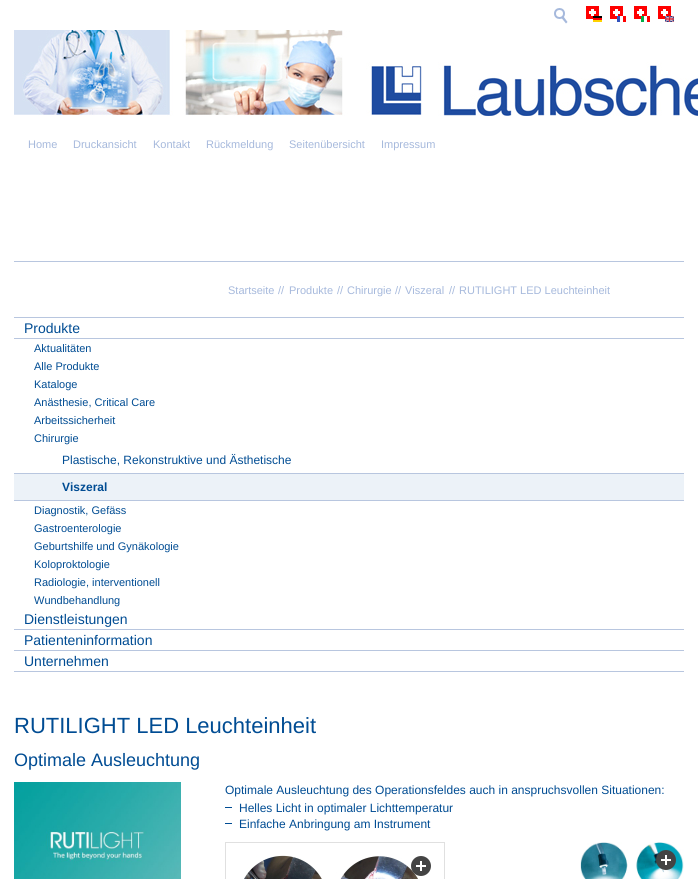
import math
import cairo

surface = cairo.ImageSurface(cairo.FORMAT_RGB24, 698, 879)
ctx = cairo.Context(surface)
options = cairo.FontOptions()
options.set_hint_metrics(cairo.HINT_METRICS_OFF)
options.set_hint_style(cairo.HINT_STYLE_NONE)
ctx.set_font_options(options)
ctx.set_miter_limit(4)


def set_color(code):
    ctx.set_source_rgb(*(v / 255 for v in bytes.fromhex(code[-6:])))


def draw_text(x, y, s, family, size, color, bold=False, italic=False):
    ctx.select_font_face(family, cairo.FONT_SLANT_ITALIC if italic else cairo.FONT_SLANT_NORMAL, cairo.FONT_WEIGHT_BOLD if bold else cairo.FONT_WEIGHT_NORMAL)
    ctx.set_font_size(size)
    set_color(color)
    ctx.move_to(x, y)
    ctx.show_text(s)


def fill_rect(x, y, w, h, color):
    set_color(color)
    ctx.rectangle(x, y, w, h)
    ctx.fill()


def draw_image(path, x, y, w, h):
    ctx.save()
    ctx.set_source_surface(cairo.ImageSurface.create_from_png(path), x, y)
    ctx.rectangle(x, y, w, h)
    ctx.fill()
    ctx.restore()


set_color("#ffffff")
ctx.paint()
ctx.arc(559.5, 13.5, 4.5, 0, 2 * math.pi)
set_color("#a6b9dc")
ctx.stroke()
ctx.new_path()
ctx.move_to(563.5, 16.5)
ctx.line_to(567.5, 22)
ctx.line_to(566, 23.5)
ctx.line_to(561.5, 18)
ctx.close_path()
ctx.fill()
draw_image("assets/img1.png", 586, 6, 16, 16)
draw_image("assets/img2.png", 610, 6, 16, 16)
draw_image("assets/img3.png", 634, 6, 16, 16)
draw_image("assets/img4.png", 658, 6, 16, 16)
draw_image("assets/img5.png", 14, 30, 684, 86)
draw_text(28, 148, "Home", "Liberation Sans", 11, "#a6b9dc")
draw_text(73, 148, "Druckansicht", "Liberation Sans", 11, "#a6b9dc")
draw_text(153, 148, "Kontakt", "Liberation Sans", 11, "#a6b9dc")
draw_text(206, 148, "Rückmeldung", "Liberation Sans", 11, "#a6b9dc")
draw_text(289, 148, "Seitenübersicht", "Liberation Sans", 11, "#a6b9dc")
draw_text(381, 148, "Impressum", "Liberation Sans", 11, "#a6b9dc")
fill_rect(14, 261, 670, 1, "#b8c6df")
draw_text(228, 294, "Startseite", "Liberation Sans", 11, "#a6b9dc")
draw_text(278, 294, "//", "Liberation Sans", 11, "#a6b9dc")
draw_text(289, 294, "Produkte", "Liberation Sans", 11, "#a6b9dc")
draw_text(337, 294, "//", "Liberation Sans", 11, "#a6b9dc")
draw_text(347, 294, "Chirurgie", "Liberation Sans", 11, "#a6b9dc")
draw_text(395, 294, "//", "Liberation Sans", 11, "#a6b9dc")
draw_text(405, 294, "Viszeral", "Liberation Sans", 11, "#a6b9dc")
draw_text(449, 294, "//", "Liberation Sans", 11, "#a6b9dc")
draw_text(459, 294, "RUTILIGHT LED Leuchteinheit", "Liberation Sans", 11, "#a6b9dc")
fill_rect(14, 317, 670, 1, "#b8c6df")
fill_rect(14, 338, 670, 1, "#b8c6df")
draw_text(24, 333, "Produkte", "Liberation Sans", 14, "#004c93")
draw_text(34, 352, "Aktualitäten", "Liberation Sans", 11, "#004c93")
draw_text(34, 370, "Alle Produkte", "Liberation Sans", 11, "#004c93")
draw_text(34, 388, "Kataloge", "Liberation Sans", 11, "#004c93")
draw_text(34, 406, "Anästhesie, Critical Care", "Liberation Sans", 11, "#004c93")
draw_text(34, 424, "Arbeitssicherheit", "Liberation Sans", 11, "#004c93")
draw_text(34, 442, "Chirurgie", "Liberation Sans", 11, "#004c93")
fill_rect(14, 473, 670, 1, "#b8c6df")
draw_text(62, 464, "Plastische, Rekonstruktive und Ästhetische", "Liberation Sans", 12, "#004c93")
fill_rect(14, 474, 670, 26, "#ecf2f8")
fill_rect(14, 500, 670, 1, "#b8c6df")
draw_text(62, 491, "Viszeral", "Liberation Sans", 12, "#004c93", bold=True)
draw_text(34, 514, "Diagnostik, Gefäss", "Liberation Sans", 11, "#004c93")
draw_text(34, 532, "Gastroenterologie", "Liberation Sans", 11, "#004c93")
draw_text(34, 550, "Geburtshilfe und Gynäkologie", "Liberation Sans", 11, "#004c93")
draw_text(34, 568, "Koloproktologie", "Liberation Sans", 11, "#004c93")
draw_text(34, 586, "Radiologie, interventionell", "Liberation Sans", 11, "#004c93")
draw_text(34, 604, "Wundbehandlung", "Liberation Sans", 11, "#004c93")
fill_rect(14, 629, 670, 1, "#b8c6df")
draw_text(24, 624, "Dienstleistungen", "Liberation Sans", 14, "#004c93")
fill_rect(14, 650, 670, 1, "#b8c6df")
draw_text(24, 645, "Patienteninformation", "Liberation Sans", 14, "#004c93")
fill_rect(14, 671, 670, 1, "#b8c6df")
draw_text(24, 666, "Unternehmen", "Liberation Sans", 14, "#004c93")
draw_text(14, 733, "RUTILIGHT LED Leuchteinheit", "Liberation Sans", 22, "#004c93")
draw_text(14, 766, "Optimale Ausleuchtung", "Liberation Sans", 18, "#004c93")
draw_image("assets/img6.png", 14, 782, 167, 97)
draw_text(225, 794, "Optimale Ausleuchtung des Operationsfeldes auch in anspruchsvollen Situationen:", "Liberation Sans", 12, "#004c93")
fill_rect(225, 807, 7, 1, "#004c93")
draw_text(239, 812, "Helles Licht in optimaler Lichttemperatur", "Liberation Sans", 12, "#004c93")
fill_rect(225, 823, 7, 1, "#004c93")
draw_text(239, 828, "Einfache Anbringung am Instrument", "Liberation Sans", 12, "#004c93")
ctx.rectangle(225.5, 842.5, 219, 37)
set_color("#e0e0e0")
ctx.set_line_width(1)
ctx.stroke()
draw_image("assets/img7.png", 244, 855, 174, 24)
set_color("#444444")
ctx.arc(421, 866, 10, 0, 2 * math.pi)
ctx.fill()
fill_rect(416, 865, 10, 2, "#ffffff")
fill_rect(420, 861, 2, 10, "#ffffff")
draw_image("assets/img8.png", 580, 842, 104, 37)
set_color("#444444")
ctx.arc(666, 860, 10, 0, 2 * math.pi)
ctx.fill()
fill_rect(661, 859, 10, 2, "#ffffff")
fill_rect(665, 855, 2, 10, "#ffffff")
surface.write_to_png("output.png")
